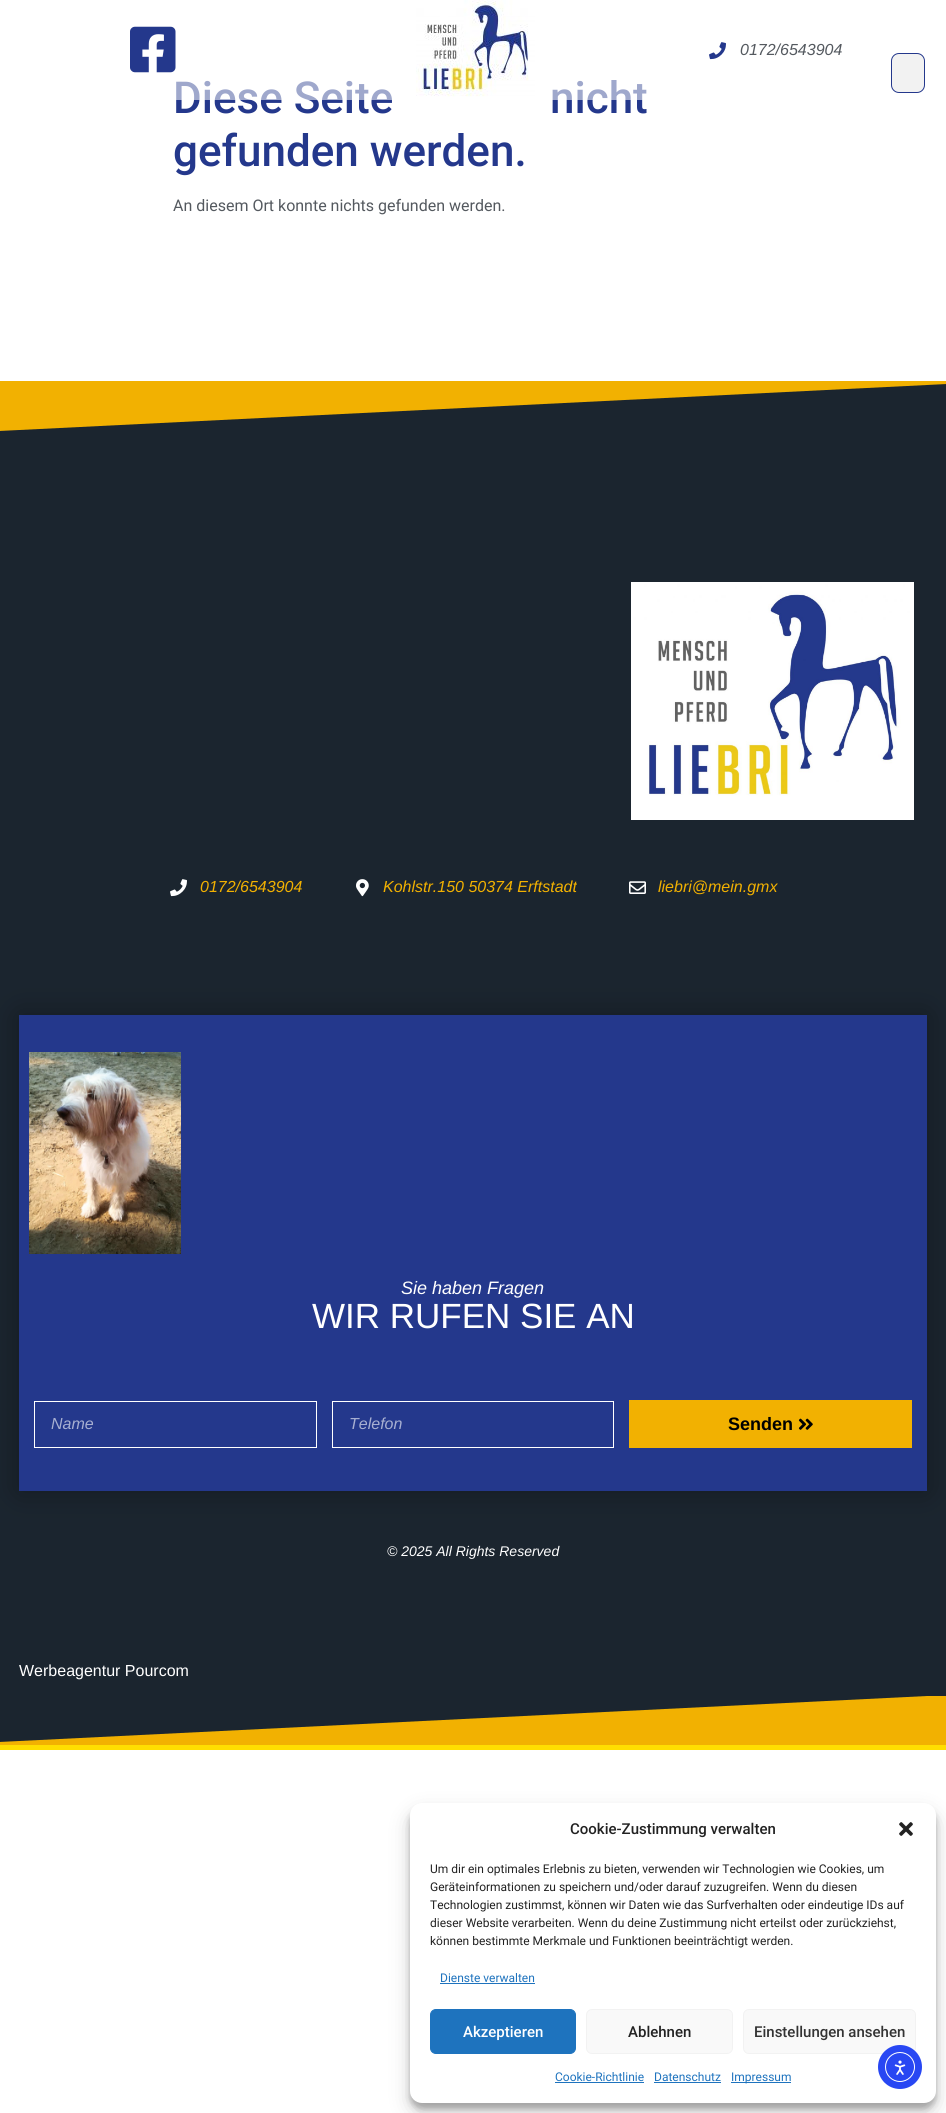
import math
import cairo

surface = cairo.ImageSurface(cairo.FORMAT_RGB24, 946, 2113)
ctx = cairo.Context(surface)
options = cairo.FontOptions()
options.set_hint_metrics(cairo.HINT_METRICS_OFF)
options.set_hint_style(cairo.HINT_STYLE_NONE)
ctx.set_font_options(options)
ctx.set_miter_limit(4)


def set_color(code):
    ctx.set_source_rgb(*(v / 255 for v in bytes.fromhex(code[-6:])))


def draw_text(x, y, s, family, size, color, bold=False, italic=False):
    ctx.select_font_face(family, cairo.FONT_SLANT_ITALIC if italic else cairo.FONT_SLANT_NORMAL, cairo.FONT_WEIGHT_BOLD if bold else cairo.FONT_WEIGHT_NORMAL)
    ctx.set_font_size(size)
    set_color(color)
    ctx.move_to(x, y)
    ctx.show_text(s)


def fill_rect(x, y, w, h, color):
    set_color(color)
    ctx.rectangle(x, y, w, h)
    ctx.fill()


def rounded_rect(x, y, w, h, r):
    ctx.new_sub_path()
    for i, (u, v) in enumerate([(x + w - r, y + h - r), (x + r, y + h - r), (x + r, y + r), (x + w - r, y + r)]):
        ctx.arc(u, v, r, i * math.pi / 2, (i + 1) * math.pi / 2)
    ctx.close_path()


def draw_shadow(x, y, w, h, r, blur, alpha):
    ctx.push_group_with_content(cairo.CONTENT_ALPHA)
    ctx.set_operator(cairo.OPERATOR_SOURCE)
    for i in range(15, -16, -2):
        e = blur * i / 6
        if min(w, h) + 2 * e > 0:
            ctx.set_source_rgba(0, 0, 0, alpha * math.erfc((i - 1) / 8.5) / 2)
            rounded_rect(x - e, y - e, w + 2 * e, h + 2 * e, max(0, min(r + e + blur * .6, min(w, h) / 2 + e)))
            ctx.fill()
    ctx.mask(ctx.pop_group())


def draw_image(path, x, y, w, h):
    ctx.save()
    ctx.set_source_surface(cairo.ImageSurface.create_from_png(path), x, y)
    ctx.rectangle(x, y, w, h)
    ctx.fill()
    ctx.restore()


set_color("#ffffff")
ctx.paint()
draw_text(173, 113, "Diese Seite", "Roboto Medium", 44, "#24388c")
draw_text(550, 113, "nicht", "Roboto Medium", 44, "#24388c")
ctx.set_source_rgba(1, 1, 1, 0.56)
ctx.rectangle(176, 80, 471, 20)
ctx.fill()
draw_image("assets/img1.png", 130, 26, 46, 47)
draw_image("assets/img2.png", 416, 0, 119, 100)
draw_image("assets/img3.png", 709, 42, 17, 18)
draw_text(740, 55, "0172/6543904", "Liberation Sans", 16, "#54595f", italic=True)
set_color("#f2f2f2")
rounded_rect(891.5, 53.5, 33, 39, 7.5)
ctx.fill_preserve()
set_color("#24388c")
ctx.set_line_width(1)
ctx.stroke()
draw_text(173, 166, "gefunden werden.", "Roboto Medium", 44, "#24388c")
draw_text(173, 211, "An diesem Ort konnte nichts gefunden werden.", "Roboto", 16, "#54595f")
fill_rect(0, 384, 946, 1358, "#1b252f")
fill_rect(0, 1745, 946, 5, "#ffde01")
set_color("#f2b101")
ctx.new_path()
ctx.move_to(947, 384)
ctx.line_to(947, 381)
ctx.line_to(-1, 381)
ctx.line_to(-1, 431)
ctx.close_path()
ctx.fill()
draw_image("assets/img4.png", 631, 582, 283, 238)
draw_image("assets/img5.png", 170, 879, 17, 18)
draw_text(200, 892, "0172/6543904", "Liberation Sans", 16, "#f2b101", italic=True)
draw_image("assets/img6.png", 356, 879, 13, 18)
draw_text(383, 892, "Kohlstr.150 50374 Erftstadt", "Liberation Sans", 16, "#f2b101", italic=True)
draw_image("assets/img7.png", 629, 881, 17, 13)
draw_text(658, 892, "liebri@mein.gmx", "Liberation Sans", 16, "#f2b101", italic=True)
set_color("#000000")
draw_shadow(19, 1015, 908, 476, 0, 15, 0.3)
fill_rect(19, 1015, 908, 476, "#24388c")
draw_image("assets/img8.png", 29, 1052, 152, 202)
draw_text(401, 1294, "Sie haben Fragen", "Liberation Sans", 18, "#ffffff", italic=True)
draw_text(312, 1328, "WIR RUFEN SIE AN", "Liberation Sans", 35, "#ffffff")
ctx.rectangle(34.5, 1401.5, 282, 46)
ctx.stroke()
draw_text(51, 1429, "Name", "Liberation Sans", 16, "#a7afd1", italic=True)
ctx.rectangle(332.5, 1401.5, 281, 46)
set_color("#ffffff")
ctx.stroke()
draw_text(349, 1429, "Telefon", "Liberation Sans", 16, "#a7afd1", italic=True)
fill_rect(629, 1400, 283, 48, "#f2b101")
draw_text(728, 1430, "Senden", "Liberation Sans", 18, "#000000", bold=True)
draw_image("assets/img9.png", 798, 1418, 15, 12)
draw_text(387, 1556, "© 2025 All Rights Reserved", "Liberation Sans", 14, "#ffffff", italic=True)
draw_text(19, 1676, "Werbeagentur Pourcom", "Liberation Sans", 16, "#ffffff")
ctx.save()
ctx.rectangle(0, 1696, 946, 50)
ctx.clip()
set_color("#f2b101")
ctx.new_path()
ctx.move_to(-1, 1742)
ctx.line_to(-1, 1745)
ctx.line_to(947, 1745)
ctx.line_to(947, 1695)
ctx.close_path()
ctx.fill()
ctx.restore()
set_color("#000000")
draw_shadow(410, 1809, 526, 300, 12, 3, 0.23)
draw_shadow(410, 1813, 526, 300, 12, 10, 0.19)
set_color("#ffffff")
rounded_rect(410, 1803, 526, 300, 12)
ctx.fill()
draw_text(570, 1834, "Cookie-Zustimmung verwalten", "Roboto Medium", 15, "#222222")
draw_image("assets/img10.png", 899, 1822, 14, 14)
draw_text(430, 1873, "Um dir ein optimales Erlebnis zu bieten, verwenden wir Technologien wie Cookies, um", "Roboto", 12, "#222222")
draw_text(430, 1891, "Geräteinformationen zu speichern und/oder darauf zuzugreifen. Wenn du diesen", "Roboto", 12, "#222222")
draw_text(430, 1909, "Technologien zustimmst, können wir Daten wie das Surfverhalten oder eindeutige IDs auf", "Roboto", 12, "#222222")
draw_text(430, 1927, "dieser Website verarbeiten. Wenn du deine Zustimmung nicht erteilst oder zurückziehst,", "Roboto", 12, "#222222")
draw_text(430, 1945, "können bestimmte Merkmale und Funktionen beeinträchtigt werden.", "Roboto", 12, "#222222")
draw_text(440, 1982, "Dienste verwalten", "Roboto", 12, "#1e73be")
fill_rect(440, 1983, 95, 1, "#1e73be")
rounded_rect(430.5, 2009.5, 145, 44, 5.5)
ctx.fill_preserve()
ctx.stroke()
draw_text(463, 2037, "Akzeptieren", "Roboto Medium", 15, "#ffffff")
set_color("#f9f9f9")
rounded_rect(586.5, 2009.5, 146, 44, 5.5)
ctx.fill_preserve()
set_color("#f2f2f2")
ctx.stroke()
draw_text(628, 2037, "Ablehnen", "Roboto Medium", 15, "#222222")
set_color("#f9f9f9")
rounded_rect(743.5, 2009.5, 172, 44, 5.5)
ctx.fill_preserve()
set_color("#f2f2f2")
ctx.stroke()
draw_text(754, 2037, "Einstellungen ansehen", "Roboto Medium", 15, "#333333")
draw_text(555, 2081, "Cookie-Richtlinie", "Roboto", 12, "#1e73be")
fill_rect(555, 2082, 89, 1, "#1e73be")
draw_text(654, 2081, "Datenschutz", "Roboto", 12, "#1e73be")
fill_rect(654, 2082, 67, 1, "#1e73be")
fill_rect(731, 2082, 60, 1, "#1e73be")
draw_text(731, 2081, "Impressum", "Roboto", 12, "#1e73be")
set_color("#2847f3")
ctx.new_path()
ctx.arc(900, 2067, 22, 0, 2 * math.pi)
ctx.fill()
ctx.arc(900, 2067, 14.5, 0, 2 * math.pi)
set_color("#ffffff")
ctx.stroke()
draw_image("assets/img11.png", 894, 2060, 12, 15)
surface.write_to_png("output.png")
